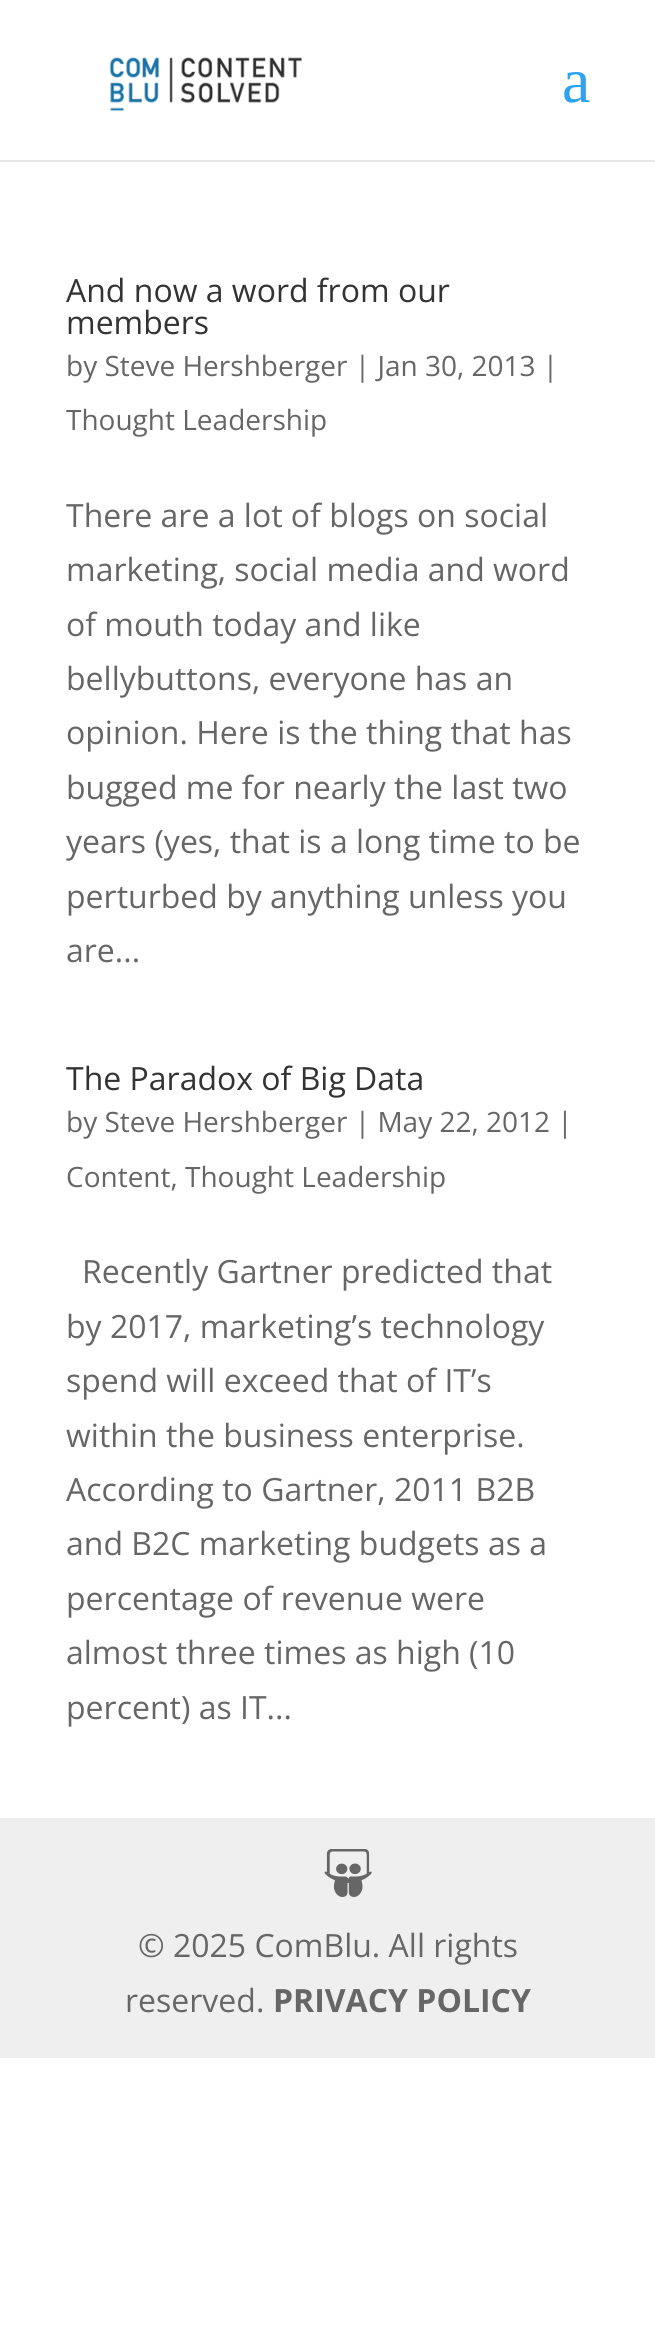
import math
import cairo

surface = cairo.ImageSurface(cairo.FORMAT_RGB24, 655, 2342)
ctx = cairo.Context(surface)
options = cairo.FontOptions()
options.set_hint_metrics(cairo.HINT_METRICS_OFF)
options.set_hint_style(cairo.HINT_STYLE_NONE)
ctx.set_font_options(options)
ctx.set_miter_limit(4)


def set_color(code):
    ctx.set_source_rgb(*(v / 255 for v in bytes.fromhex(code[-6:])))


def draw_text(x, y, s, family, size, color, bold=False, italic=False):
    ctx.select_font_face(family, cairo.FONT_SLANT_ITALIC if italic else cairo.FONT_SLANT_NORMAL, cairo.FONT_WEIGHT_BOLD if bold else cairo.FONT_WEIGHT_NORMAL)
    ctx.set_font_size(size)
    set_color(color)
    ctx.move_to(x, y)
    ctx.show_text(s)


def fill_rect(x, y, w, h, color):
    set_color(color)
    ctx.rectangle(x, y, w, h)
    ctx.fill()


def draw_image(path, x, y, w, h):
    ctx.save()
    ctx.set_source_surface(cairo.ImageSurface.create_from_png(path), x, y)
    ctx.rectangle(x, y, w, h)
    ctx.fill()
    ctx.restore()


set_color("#ffffff")
ctx.paint()
fill_rect(0, 160, 655, 2, "#e6e6e6")
draw_image("assets/img1.png", 109, 57, 193, 55)
draw_text(562, 102, "a", "Liberation Serif", 64, "#2ea3f2")
draw_text(66, 302, "And now a word from our", "Open Sans", 32, "#333333")
draw_text(66, 334, "members", "Open Sans", 32, "#333333")
draw_text(66, 376, "by Steve Hershberger | Jan 30, 2013 |", "Open Sans", 28, "#666666")
draw_text(66, 430, "Thought Leadership", "Open Sans", 28, "#666666")
draw_text(66, 527, "There are a lot of blogs on social", "Open Sans", 32, "#666666")
draw_text(66, 581, "marketing, social media and word", "Open Sans", 32, "#666666")
draw_text(66, 636, "of mouth today and like", "Open Sans", 32, "#666666")
draw_text(66, 690, "bellybuttons, everyone has an", "Open Sans", 32, "#666666")
draw_text(66, 744, "opinion. Here is the thing that has", "Open Sans", 32, "#666666")
draw_text(66, 799, "bugged me for nearly the last two", "Open Sans", 32, "#666666")
draw_text(66, 853, "years (yes, that is a long time to be", "Open Sans", 32, "#666666")
draw_text(66, 908, "perturbed by anything unless you", "Open Sans", 32, "#666666")
draw_text(66, 962, "are...", "Open Sans", 32, "#666666")
draw_text(66, 1090, "The Paradox of Big Data", "Open Sans", 32, "#333333")
draw_text(66, 1132, "by Steve Hershberger | May 22, 2012 |", "Open Sans", 28, "#666666")
draw_text(66, 1187, "Content, Thought Leadership", "Open Sans", 28, "#666666")
draw_text(82, 1283, "Recently Gartner predicted that", "Open Sans", 32, "#666666")
draw_text(66, 1338, "by 2017, marketing’s technology", "Open Sans", 32, "#666666")
draw_text(66, 1392, "spend will exceed that of IT’s", "Open Sans", 32, "#666666")
draw_text(66, 1447, "within the business enterprise.", "Open Sans", 32, "#666666")
draw_text(66, 1501, "According to Gartner, 2011 B2B", "Open Sans", 32, "#666666")
draw_text(66, 1555, "and B2C marketing budgets as a", "Open Sans", 32, "#666666")
draw_text(66, 1610, "percentage of revenue were", "Open Sans", 32, "#666666")
draw_text(66, 1664, "almost three times as high (10", "Open Sans", 32, "#666666")
draw_text(66, 1719, "percent) as IT...", "Open Sans", 32, "#666666")
fill_rect(0, 1818, 655, 240, "#efefef")
draw_image("assets/img2.png", 324, 1849, 48, 48)
draw_text(138, 1957, "© 2025 ComBlu. All rights", "Open Sans", 32, "#666666")
draw_text(125, 2012, "reserved.", "Open Sans", 32, "#666666")
draw_text(273, 2012, "PRIVACY POLICY", "Open Sans", 32, "#666666", bold=True)
surface.write_to_png("output.png")
